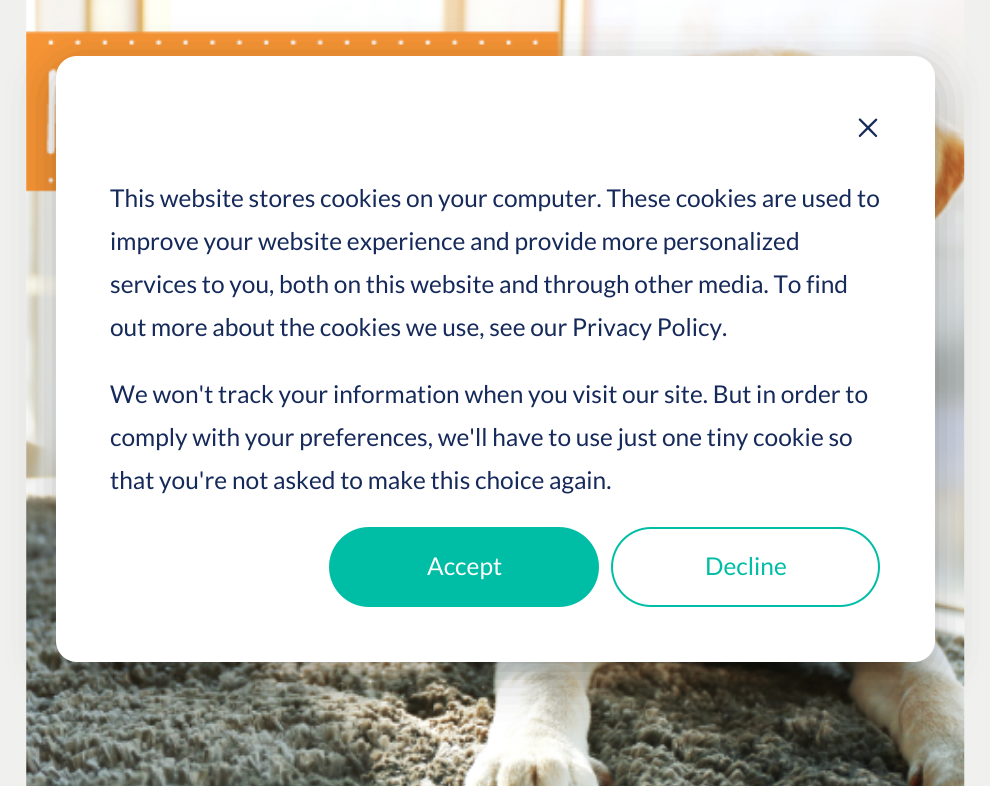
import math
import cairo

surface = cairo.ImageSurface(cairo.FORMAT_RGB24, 990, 786)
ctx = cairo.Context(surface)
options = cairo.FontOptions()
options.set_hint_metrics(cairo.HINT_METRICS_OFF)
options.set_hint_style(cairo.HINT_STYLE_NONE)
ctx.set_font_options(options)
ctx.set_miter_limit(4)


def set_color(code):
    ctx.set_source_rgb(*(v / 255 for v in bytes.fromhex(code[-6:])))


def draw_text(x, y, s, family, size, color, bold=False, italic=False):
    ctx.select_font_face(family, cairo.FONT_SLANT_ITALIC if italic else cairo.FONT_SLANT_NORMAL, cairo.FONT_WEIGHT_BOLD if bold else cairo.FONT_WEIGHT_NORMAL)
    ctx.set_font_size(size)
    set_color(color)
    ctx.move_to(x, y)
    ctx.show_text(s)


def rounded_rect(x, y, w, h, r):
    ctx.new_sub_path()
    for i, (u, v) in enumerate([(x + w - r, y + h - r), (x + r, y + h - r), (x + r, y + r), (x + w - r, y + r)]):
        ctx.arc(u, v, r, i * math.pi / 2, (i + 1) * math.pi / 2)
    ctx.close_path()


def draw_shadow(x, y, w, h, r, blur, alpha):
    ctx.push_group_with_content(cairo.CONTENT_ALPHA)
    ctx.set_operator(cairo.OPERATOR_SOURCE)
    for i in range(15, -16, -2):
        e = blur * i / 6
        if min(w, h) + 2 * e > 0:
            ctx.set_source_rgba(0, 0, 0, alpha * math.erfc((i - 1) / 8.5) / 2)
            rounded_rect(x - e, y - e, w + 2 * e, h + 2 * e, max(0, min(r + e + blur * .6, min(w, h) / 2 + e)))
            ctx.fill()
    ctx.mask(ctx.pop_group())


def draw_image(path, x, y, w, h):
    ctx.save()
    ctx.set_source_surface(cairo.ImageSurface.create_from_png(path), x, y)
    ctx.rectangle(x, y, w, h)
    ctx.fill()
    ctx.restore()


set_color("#f0f0ef")
ctx.paint()
draw_image("assets/img1.png", 26, 0, 939, 786)
set_color("#000000")
draw_shadow(56, 70, 879, 606, 21, 24.5, 0.28)
set_color("#ffffff")
rounded_rect(56, 56, 879, 606, 21)
ctx.fill()
draw_image("assets/img2.png", 858, 118, 20, 20)
draw_text(110, 207, "This website stores cookies on your computer. These cookies are used to", "Lato", 24.5, "#15295a")
draw_text(110, 250, "improve your website experience and provide more personalized", "Lato", 24.5, "#15295a")
draw_text(110, 293, "services to you, both on this website and through other media. To find", "Lato", 24.5, "#15295a")
draw_text(110, 336, "out more about the cookies we use, see our Privacy Policy.", "Lato", 24.5, "#15295a")
draw_text(110, 403, "We won't track your information when you visit our site. But in order to", "Lato", 24.5, "#15295a")
draw_text(110, 446, "comply with your preferences, we'll have to use just one tiny cookie so", "Lato", 24.5, "#15295a")
draw_text(110, 489, "that you're not asked to make this choice again.", "Lato", 24.5, "#15295a")
set_color("#00bda5")
rounded_rect(330, 528, 268, 78, 39)
ctx.fill_preserve()
ctx.stroke()
draw_text(427, 575, "Accept", "Lato", 24.5, "#ffffff")
rounded_rect(612, 528, 267, 78, 39)
set_color("#00bda5")
ctx.stroke()
draw_text(705, 575, "Decline", "Lato", 24.5, "#00bda5")
surface.write_to_png("output.png")
